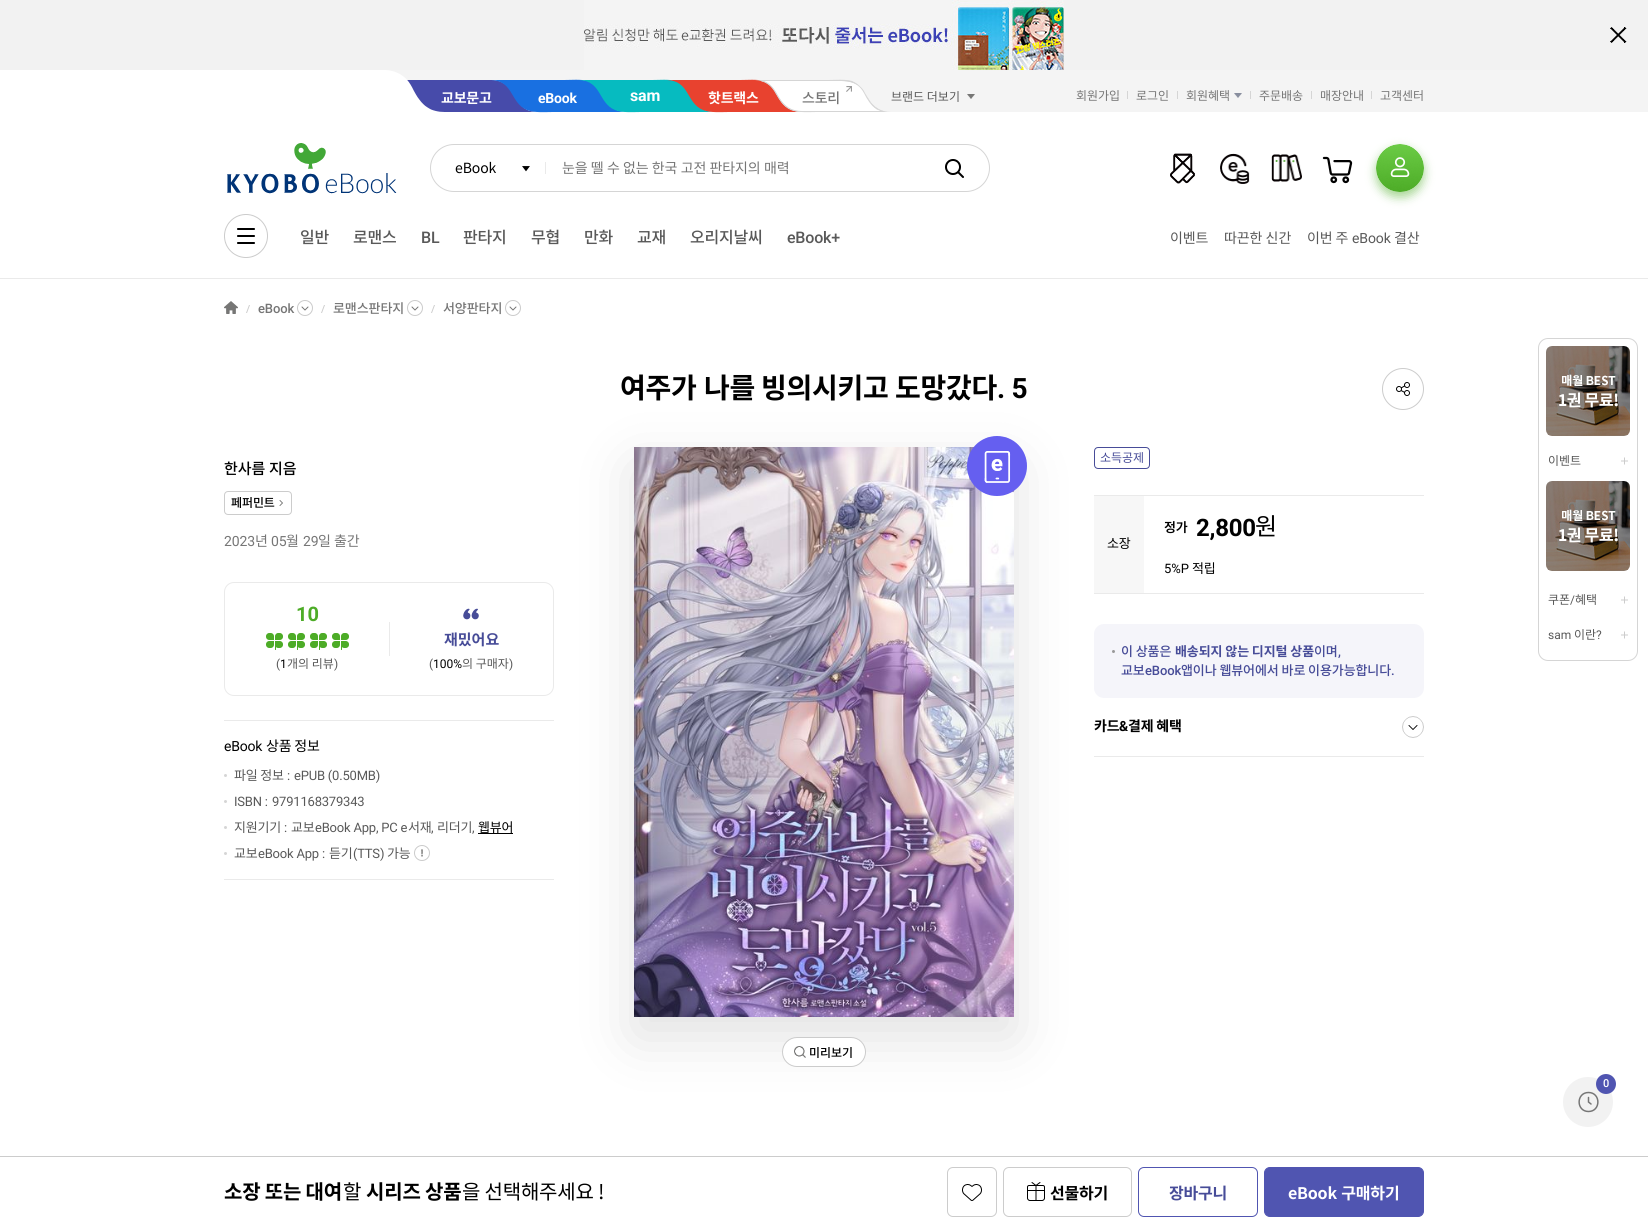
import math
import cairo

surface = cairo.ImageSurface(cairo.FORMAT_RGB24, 1648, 1227)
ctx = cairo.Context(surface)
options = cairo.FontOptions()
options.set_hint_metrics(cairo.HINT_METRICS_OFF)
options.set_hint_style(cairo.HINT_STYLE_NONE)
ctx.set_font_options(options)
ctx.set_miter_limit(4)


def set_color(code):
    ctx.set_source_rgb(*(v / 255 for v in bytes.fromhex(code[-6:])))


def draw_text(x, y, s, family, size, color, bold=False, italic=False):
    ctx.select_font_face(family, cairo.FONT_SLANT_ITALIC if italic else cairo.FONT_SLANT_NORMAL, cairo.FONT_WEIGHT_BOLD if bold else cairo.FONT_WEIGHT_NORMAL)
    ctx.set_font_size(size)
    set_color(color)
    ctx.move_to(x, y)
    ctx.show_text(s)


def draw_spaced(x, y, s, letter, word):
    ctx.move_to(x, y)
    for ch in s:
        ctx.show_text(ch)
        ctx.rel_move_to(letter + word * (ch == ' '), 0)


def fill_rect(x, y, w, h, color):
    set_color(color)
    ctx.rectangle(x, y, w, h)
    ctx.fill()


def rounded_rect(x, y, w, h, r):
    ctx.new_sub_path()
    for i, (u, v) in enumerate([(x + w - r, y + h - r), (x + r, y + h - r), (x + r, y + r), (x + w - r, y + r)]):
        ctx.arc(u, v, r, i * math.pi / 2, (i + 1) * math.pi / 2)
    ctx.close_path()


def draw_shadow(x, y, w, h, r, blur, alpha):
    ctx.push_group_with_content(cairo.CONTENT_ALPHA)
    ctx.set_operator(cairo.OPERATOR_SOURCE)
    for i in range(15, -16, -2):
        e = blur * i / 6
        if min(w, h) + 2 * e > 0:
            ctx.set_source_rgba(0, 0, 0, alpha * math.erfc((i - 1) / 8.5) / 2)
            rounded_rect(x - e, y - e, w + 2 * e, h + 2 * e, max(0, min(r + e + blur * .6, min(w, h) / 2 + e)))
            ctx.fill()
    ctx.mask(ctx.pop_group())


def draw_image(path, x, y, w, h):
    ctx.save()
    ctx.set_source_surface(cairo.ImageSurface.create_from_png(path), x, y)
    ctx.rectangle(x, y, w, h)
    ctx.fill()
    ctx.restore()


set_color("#ffffff")
ctx.paint()
fill_rect(0, 0, 1648, 70, "#f2f2f2")
draw_image("assets/img1.png", 584, 0, 480, 70)
draw_image("assets/img2.png", 1610, 27, 17, 16)
fill_rect(0, 278, 1648, 1, "#eaeaea")
fill_rect(386, 70, 1262, 42, "#f4f4f4")
set_color("#474baa")
ctx.new_path()
ctx.move_to(407, 80)
ctx.line_to(407, 112)
ctx.line_to(539, 112)
ctx.curve_to(528, 112, 521, 109, 513, 93)
ctx.curve_to(506, 79, 491, 80, 491, 80)
ctx.close_path()
ctx.fill()
ctx.select_font_face("Noto Sans KR", cairo.FONT_SLANT_NORMAL, cairo.FONT_WEIGHT_BOLD)
ctx.set_font_size(14)
set_color("#ffffff")
draw_spaced(441, 103, "교보문고", -0.2, 0)
draw_image("assets/img3.png", 224, 70, 220, 42)
set_color("#1970e1")
ctx.new_path()
ctx.move_to(627, 112)
ctx.line_to(553, 112)
ctx.curve_to(546, 112, 534, 113, 527, 110)
ctx.curve_to(510, 103, 514, 81, 491, 80)
ctx.line_to(564, 80)
ctx.curve_to(571, 80, 581, 79, 588, 81)
ctx.curve_to(597, 85, 599, 91, 604, 98)
ctx.curve_to(609, 107, 617, 112, 627, 112)
ctx.close_path()
ctx.fill()
ctx.select_font_face("Roboto", cairo.FONT_SLANT_NORMAL, cairo.FONT_WEIGHT_BOLD)
set_color("#ffffff")
draw_spaced(538, 103, "eBook", -0.2, 0)
set_color("#06bbc0")
ctx.new_path()
ctx.move_to(715, 112)
ctx.line_to(641, 112)
ctx.curve_to(634, 112, 622, 113, 615, 110)
ctx.curve_to(598, 103, 602, 81, 579, 80)
ctx.line_to(652, 80)
ctx.curve_to(659, 80, 669, 79, 676, 81)
ctx.curve_to(685, 85, 687, 91, 692, 98)
ctx.curve_to(697, 107, 705, 112, 715, 112)
ctx.close_path()
ctx.fill()
ctx.set_font_size(16)
set_color("#ffffff")
draw_spaced(630, 101, "sam", -0.2, 0)
set_color("#e8422f")
ctx.new_path()
ctx.move_to(803, 112)
ctx.line_to(729, 112)
ctx.curve_to(722, 112, 710, 113, 703, 110)
ctx.curve_to(686, 103, 690, 81, 667, 80)
ctx.line_to(740, 80)
ctx.curve_to(747, 80, 757, 79, 764, 81)
ctx.curve_to(773, 85, 775, 91, 780, 98)
ctx.curve_to(785, 107, 793, 112, 803, 112)
ctx.close_path()
ctx.fill()
ctx.select_font_face("Noto Sans KR", cairo.FONT_SLANT_NORMAL, cairo.FONT_WEIGHT_BOLD)
ctx.set_font_size(14)
set_color("#ffffff")
draw_spaced(708, 103, "핫트랙스", -0.2, 0)
set_color("#d5d5d5")
ctx.new_path()
ctx.move_to(891, 112)
ctx.line_to(817, 112)
ctx.curve_to(810, 112, 798, 113, 791, 110)
ctx.curve_to(774, 103, 778, 81, 755, 80)
ctx.line_to(828, 80)
ctx.curve_to(835, 80, 845, 79, 852, 81)
ctx.curve_to(861, 85, 863, 91, 868, 98)
ctx.curve_to(873, 107, 881, 112, 891, 112)
ctx.close_path()
ctx.fill()
set_color("#ffffff")
ctx.new_path()
ctx.move_to(877, 109)
ctx.line_to(883, 111)
ctx.line_to(802, 111)
ctx.curve_to(792, 112, 784, 107, 779, 98)
ctx.curve_to(775, 91, 772, 85, 765, 82)
ctx.line_to(761, 81)
ctx.line_to(829, 81)
ctx.curve_to(843, 81, 857, 79, 865, 93)
ctx.curve_to(868, 99, 871, 105, 877, 109)
ctx.close_path()
ctx.fill()
ctx.save()
ctx.new_path()
ctx.move_to(891, 112)
ctx.line_to(802, 112)
ctx.curve_to(799.5, 112, 797, 112, 794.5, 111)
ctx.curve_to(792, 110.5, 789.5, 109.5, 787.5, 108.5)
ctx.curve_to(783.5, 105.5, 779.5, 100.5, 775.5, 93)
ctx.curve_to(773.5, 88.5, 769.5, 84.5, 764.5, 82.5)
ctx.curve_to(761.5, 81, 758.5, 80, 755, 80)
ctx.line_to(843.5, 80)
ctx.curve_to(847, 80, 850, 80.5, 853, 82)
ctx.curve_to(855.5, 83, 857.5, 84, 859.5, 86)
ctx.curve_to(862, 88, 864, 90.5, 865, 93)
ctx.curve_to(869, 100.5, 872.5, 105.5, 877, 108.5)
ctx.curve_to(879, 109.5, 881.5, 110.5, 884, 111)
ctx.curve_to(886, 112, 888.5, 112, 891, 112)
ctx.close_path()
ctx.clip()
ctx.new_path()
ctx.move_to(877, 109)
ctx.line_to(883, 111.5)
ctx.line_to(802, 111.5)
ctx.curve_to(791.5, 111.5, 784.5, 107, 779, 98)
ctx.curve_to(775, 91.5, 772.5, 85.5, 765, 82)
ctx.line_to(761, 80.5)
ctx.line_to(829.5, 80.5)
ctx.curve_to(843, 80.5, 857, 78.5, 864.5, 93)
ctx.curve_to(867.5, 99, 871, 105, 877, 109)
ctx.close_path()
set_color("#d5d5d5")
ctx.set_line_width(1)
ctx.stroke()
ctx.restore()
draw_image("assets/img4.png", 846, 86, 6, 6)
ctx.select_font_face("Noto Sans KR Medium")
set_color("#767676")
draw_spaced(802, 103, "스토리", -0.2, 0)
draw_text(891, 101, "브랜드 더보기", "Noto Sans KR", 12, "#595959")
draw_image("assets/img5.png", 967, 94, 8, 5)
draw_text(1076, 100, "회원가입", "Noto Sans KR", 12, "#767676")
fill_rect(1127, 91, 1, 8, "#d5d5d5")
draw_text(1136, 100, "로그인", "Noto Sans KR", 12, "#767676")
fill_rect(1177, 91, 1, 8, "#d5d5d5")
draw_text(1186, 100, "회원혜택", "Noto Sans KR", 12, "#767676")
draw_image("assets/img6.png", 1234, 93, 8, 5)
fill_rect(1250, 91, 1, 8, "#d5d5d5")
draw_text(1259, 100, "주문배송", "Noto Sans KR", 12, "#767676")
fill_rect(1311, 91, 1, 8, "#d5d5d5")
draw_text(1320, 100, "매장안내", "Noto Sans KR", 12, "#767676")
fill_rect(1371, 91, 1, 8, "#d5d5d5")
draw_text(1380, 100, "고객센터", "Noto Sans KR", 12, "#767676")
draw_image("assets/img7.png", 227, 143, 170, 51)
rounded_rect(430.5, 144.5, 559, 47, 23.5)
set_color("#d5d5d5")
ctx.set_line_width(1)
ctx.stroke()
ctx.set_font_size(14)
set_color("#000000")
draw_spaced(455, 173, "eBook", -0.1, 0)
draw_image("assets/img8.png", 522, 166, 8, 6)
fill_rect(545, 162, 1, 12, "#eaeaea")
set_color("#767676")
draw_spaced(562, 173, "눈을 뗄 수 없는 한국 고전 판타지의 매력", -0.1, 0.25)
draw_image("assets/img9.png", 945, 159, 19, 19)
draw_image("assets/img10.png", 1170, 153, 25, 31)
draw_image("assets/img11.png", 1220, 153, 30, 31)
draw_image("assets/img12.png", 1271, 154, 31, 28)
draw_image("assets/img13.png", 1322, 156, 31, 28)
set_color("#4dac27")
draw_shadow(1376, 149, 48, 48, 24, 5, 0.5)
draw_image("assets/img14.png", 1376, 144, 48, 48)
draw_image("assets/img15.png", 224, 214, 44, 44)
ctx.select_font_face("Noto Sans KR Medium")
ctx.set_font_size(16)
set_color("#595959")
draw_spaced(300, 243, "일반", -0.2, 0)
draw_spaced(353, 243, "로맨스", -0.2, 0)
ctx.select_font_face("Roboto Medium")
draw_spaced(421, 243, "BL", -0.2, 0)
ctx.select_font_face("Noto Sans KR Medium")
draw_spaced(463, 243, "판타지", -0.2, 0)
draw_spaced(531, 243, "무협", -0.2, 0)
draw_spaced(584, 243, "만화", -0.2, 0)
draw_spaced(637, 243, "교재", -0.2, 0)
draw_spaced(690, 243, "오리지날씨", -0.2, 0)
ctx.select_font_face("Roboto Medium")
draw_spaced(787, 243, "eBook+", -0.2, 0)
ctx.select_font_face("Noto Sans KR")
ctx.set_font_size(14)
draw_spaced(1170, 243, "이벤트", -0.1, 0)
draw_spaced(1224, 243, "따끈한 신간", -0.1, 0.25)
draw_spaced(1307, 243, "이번 주", -0.1, 0)
ctx.select_font_face("Roboto")
draw_spaced(1352, 243, "eBook", -0.1, 0)
ctx.select_font_face("Noto Sans KR")
draw_spaced(1394, 243, "결산", -0.1, 0)
draw_image("assets/img16.png", 224, 301, 14, 13)
draw_image("assets/img17.png", 246, 305, 4, 8)
ctx.select_font_face("Roboto Medium")
ctx.set_font_size(13)
set_color("#767676")
draw_spaced(258, 313, "eBook", -0.1, 0)
draw_image("assets/img18.png", 297, 300, 16, 16)
draw_image("assets/img17.png", 321, 305, 4, 8)
ctx.select_font_face("Noto Sans KR Medium")
draw_spaced(333, 313, "로맨스판타지", -0.1, 0)
draw_image("assets/img18.png", 407, 300, 16, 16)
draw_image("assets/img17.png", 431, 305, 4, 8)
draw_spaced(443, 313, "서양판타지", -0.1, 0)
draw_image("assets/img18.png", 505, 300, 16, 16)
ctx.select_font_face("Noto Sans KR", cairo.FONT_SLANT_NORMAL, cairo.FONT_WEIGHT_BOLD)
ctx.set_font_size(28)
set_color("#000000")
draw_spaced(620, 398, "여주가", -0.25, 0)
draw_spaced(704, 398, "나를", -0.25, 0)
draw_spaced(761, 398, "빙의시키고", -0.25, 0)
draw_spaced(895, 398, "도망갔다", -0.25, 0)
ctx.select_font_face("Roboto", cairo.FONT_SLANT_NORMAL, cairo.FONT_WEIGHT_BOLD)
draw_spaced(997, 398, ". 5", -0.25, 0)
ctx.new_path()
ctx.arc(1403, 389, 20.5, 0, 2 * math.pi)
set_color("#cccccc")
ctx.stroke()
draw_image("assets/img19.png", 1396, 382, 14, 14)
draw_text(224, 474, "한사름", "Noto Sans KR Medium", 15, "#000000")
draw_text(269, 474, "지음", "Noto Sans KR Medium", 15, "#000000")
rounded_rect(224.5, 491.5, 67, 23, 3.5)
set_color("#cccccc")
ctx.stroke()
ctx.set_font_size(12)
set_color("#000000")
draw_spaced(231, 507, "페퍼민트", -0.1, 0)
draw_image("assets/img20.png", 279, 500, 4, 6)
ctx.select_font_face("Roboto")
ctx.set_font_size(14)
set_color("#767676")
draw_spaced(224, 546, "2023", -0.1, 0)
ctx.select_font_face("Noto Sans KR")
draw_spaced(255, 546, "년", -0.1, 0)
ctx.select_font_face("Roboto")
draw_spaced(271, 546, "05", -0.1, 0)
ctx.select_font_face("Noto Sans KR")
draw_spaced(286, 546, "월", -0.1, 0)
ctx.select_font_face("Roboto")
draw_spaced(303, 546, "29", -0.1, 0)
ctx.select_font_face("Noto Sans KR")
draw_spaced(318, 546, "일 출간", -0.1, 0.25)
rounded_rect(224.5, 582.5, 329, 113, 9.5)
set_color("#eaeaea")
ctx.stroke()
draw_text(296, 621, "10", "Roboto", 20, "#4dac27", bold=True)
draw_image("assets/img21.png", 266, 633, 17, 17)
draw_image("assets/img21.png", 288, 633, 17, 17)
draw_image("assets/img21.png", 310, 633, 17, 17)
draw_image("assets/img21.png", 332, 633, 17, 17)
draw_image("assets/img22.png", 266, 633, 17, 17)
draw_image("assets/img22.png", 288, 633, 17, 17)
draw_image("assets/img22.png", 310, 633, 17, 17)
draw_image("assets/img22.png", 332, 633, 17, 17)
draw_text(276, 668, "(", "Roboto", 12, "#595959")
draw_text(280, 668, "1", "Roboto", 12, "#000000")
draw_text(287, 668, "개의 리뷰", "Noto Sans KR", 12, "#595959")
draw_text(334, 668, ")", "Roboto", 12, "#595959")
fill_rect(389, 622, 1, 34, "#eaeaea")
draw_image("assets/img23.png", 463, 608, 16, 12)
draw_text(444, 645, "재밌어요", "Noto Sans KR", 15, "#474c98", bold=True)
draw_text(429, 668, "(", "Roboto", 12, "#595959")
draw_text(433, 668, "100%", "Roboto", 12, "#000000")
draw_text(462, 668, "의 구매자", "Noto Sans KR", 12, "#595959")
draw_text(509, 668, ")", "Roboto", 12, "#595959")
fill_rect(224, 720, 330, 1, "#eaeaea")
fill_rect(224, 879, 330, 1, "#eaeaea")
ctx.set_font_size(14)
set_color("#000000")
draw_spaced(224, 751, "eBook", -0.2, 0)
ctx.select_font_face("Noto Sans KR")
draw_spaced(266, 751, "상품 정보", -0.2, 0)
set_color("#d5d5d5")
ctx.new_path()
ctx.arc(225.5, 775.5, 1.5, 0, 2 * math.pi)
ctx.fill()
ctx.set_font_size(13)
set_color("#595959")
draw_spaced(234, 780, "파일 정보", -0.2, 0)
ctx.select_font_face("Roboto")
draw_spaced(287, 780, ":", -0.2, 0)
draw_spaced(294, 780, "ePUB (0.50MB)", -0.2, 0)
set_color("#d5d5d5")
ctx.new_path()
ctx.arc(225.5, 801.5, 1.5, 0, 2 * math.pi)
ctx.fill()
set_color("#595959")
draw_spaced(234, 806, "ISBN :", -0.2, 0)
draw_spaced(272, 806, "9791168379343", -0.2, 0)
set_color("#d5d5d5")
ctx.new_path()
ctx.arc(225.5, 827.5, 1.5, 0, 2 * math.pi)
ctx.fill()
ctx.select_font_face("Noto Sans KR")
set_color("#595959")
draw_spaced(234, 832, "지원기기", -0.2, 0)
ctx.select_font_face("Roboto")
draw_spaced(284, 832, ":", -0.2, 0)
ctx.select_font_face("Noto Sans KR")
draw_spaced(291, 832, "교보", -0.2, 0)
ctx.select_font_face("Roboto")
draw_spaced(315, 832, "eBook App, PC e", -0.2, 0)
ctx.select_font_face("Noto Sans KR")
draw_spaced(408, 832, "서재", -0.2, 0)
ctx.select_font_face("Roboto")
draw_spaced(431, 832, ",", -0.2, 0)
ctx.select_font_face("Noto Sans KR")
draw_spaced(437, 832, "리더기", -0.2, 0)
ctx.select_font_face("Roboto")
draw_spaced(472, 832, ",", -0.2, 0)
ctx.select_font_face("Noto Sans KR")
set_color("#000000")
draw_spaced(478, 832, "웹뷰어", -0.2, 0)
fill_rect(478, 833, 35, 1, "#000000")
set_color("#d5d5d5")
ctx.new_path()
ctx.arc(225.5, 853.5, 1.5, 0, 2 * math.pi)
ctx.fill()
set_color("#595959")
draw_spaced(234, 858, "교보", -0.2, 0)
ctx.select_font_face("Roboto")
draw_spaced(258, 858, "eBook App :", -0.2, 0)
ctx.select_font_face("Noto Sans KR")
draw_spaced(329, 858, "듣기", -0.2, 0)
ctx.select_font_face("Roboto")
draw_spaced(353, 858, "(TTS)", -0.2, 0)
ctx.select_font_face("Noto Sans KR")
draw_spaced(387, 858, "가능", -0.2, 0)
draw_image("assets/img24.png", 414, 845, 16, 16)
rounded_rect(1094.5, 447.5, 55, 21, 3.5)
set_color("#474c98")
ctx.stroke()
fill_rect(1094, 495, 330, 1, "#eaeaea")
fill_rect(1094, 593, 330, 1, "#eaeaea")
fill_rect(1094, 496, 50, 97, "#f7f7f7")
set_color("#f5f5fa")
rounded_rect(1094, 624, 330, 74, 10)
ctx.fill()
fill_rect(1094, 756, 330, 1, "#eaeaea")
set_color("#000000")
draw_shadow(634, 467, 380, 570, 0, 30, 0.12)
draw_text(1100, 462, "소득공제", "Noto Sans KR", 12, "#474c98")
ctx.set_font_size(13)
set_color("#000000")
draw_spaced(1107, 548, "소장", -0.2, 0)
ctx.select_font_face("Noto Sans KR SemiBold")
draw_spaced(1164, 532, "정가", -0.1, 0)
ctx.select_font_face("Roboto", cairo.FONT_SLANT_NORMAL, cairo.FONT_WEIGHT_BOLD)
ctx.set_font_size(24)
draw_spaced(1196, 536, "2,800", -0.25, 0)
ctx.select_font_face("Noto Sans KR")
draw_spaced(1255, 535, "원", -0.2, 0)
ctx.select_font_face("Roboto")
ctx.set_font_size(13)
draw_spaced(1164, 573, "5%P", -0.1, 0)
ctx.select_font_face("Noto Sans KR")
draw_spaced(1192, 573, "적립", -0.1, 0)
set_color("#999999")
ctx.new_path()
ctx.arc(1113.5, 651.5, 1.5, 0, 2 * math.pi)
ctx.fill()
ctx.select_font_face("Noto Sans KR Medium")
set_color("#474c98")
draw_spaced(1121, 656, "이 상품은", -0.1, 0)
ctx.select_font_face("Noto Sans KR", cairo.FONT_SLANT_NORMAL, cairo.FONT_WEIGHT_BOLD)
draw_spaced(1175, 656, "배송되지 않는 디지털 상품", -0.1, 0)
ctx.select_font_face("Noto Sans KR Medium")
draw_spaced(1314, 656, "이며", -0.1, 0)
ctx.select_font_face("Roboto Medium")
draw_spaced(1338, 656, ",", -0.1, 0)
ctx.select_font_face("Noto Sans KR Medium")
draw_spaced(1121, 675, "교보", -0.1, 0)
ctx.select_font_face("Roboto Medium")
draw_spaced(1145, 675, "eBook", -0.1, 0)
ctx.select_font_face("Noto Sans KR Medium")
draw_spaced(1181, 675, "앱이나 웹뷰어에서 바로 이용가능합니다", -0.1, 0)
ctx.select_font_face("Roboto Medium")
draw_spaced(1391, 675, ".", -0.1, 0)
ctx.select_font_face("Noto Sans KR", cairo.FONT_SLANT_NORMAL, cairo.FONT_WEIGHT_BOLD)
ctx.set_font_size(14)
set_color("#000000")
draw_spaced(1094, 731, "카드", -0.2, 0)
ctx.select_font_face("Roboto", cairo.FONT_SLANT_NORMAL, cairo.FONT_WEIGHT_BOLD)
draw_spaced(1119, 731, "&", -0.2, 0)
ctx.select_font_face("Noto Sans KR", cairo.FONT_SLANT_NORMAL, cairo.FONT_WEIGHT_BOLD)
draw_spaced(1128, 731, "결제 혜택", -0.2, 0)
draw_image("assets/img25.png", 1402, 716, 22, 22)
draw_image("assets/img27.png", 634, 447, 380, 570)
draw_image("assets/img26.png", 967, 436, 60, 60)
set_color("#ffffff")
rounded_rect(782.5, 1037.5, 83, 29, 14.5)
ctx.fill_preserve()
set_color("#cccccc")
ctx.stroke()
draw_image("assets/img28.png", 794, 1046, 12, 12)
draw_text(809, 1057, "미리보기", "Noto Sans KR Medium", 12, "#000000")
fill_rect(0, 1156, 1648, 1, "#cccccc")
ctx.select_font_face("Noto Sans KR", cairo.FONT_SLANT_NORMAL, cairo.FONT_WEIGHT_BOLD)
ctx.set_font_size(20)
set_color("#000000")
draw_spaced(224, 1199, "소장 또는 대여", -0.2, 0)
ctx.select_font_face("Noto Sans KR")
draw_spaced(343, 1199, "할", -0.2, 0)
ctx.select_font_face("Noto Sans KR", cairo.FONT_SLANT_NORMAL, cairo.FONT_WEIGHT_BOLD)
draw_spaced(366, 1199, "시리즈 상품", -0.2, 0)
ctx.select_font_face("Noto Sans KR")
draw_spaced(462, 1199, "을 선택해주세요 !", -0.2, 0)
rounded_rect(947.5, 1167.5, 49, 49, 5.5)
set_color("#cccccc")
ctx.stroke()
draw_image("assets/img29.png", 962, 1184, 20, 17)
rounded_rect(1003.5, 1167.5, 128, 49, 5.5)
ctx.stroke()
draw_image("assets/img30.png", 1027, 1182, 18, 19)
ctx.select_font_face("Noto Sans KR", cairo.FONT_SLANT_NORMAL, cairo.FONT_WEIGHT_BOLD)
ctx.set_font_size(16)
set_color("#000000")
draw_spaced(1050, 1199, "선물하기", -0.2, 0)
rounded_rect(1138.5, 1167.5, 119, 49, 5.5)
set_color("#5055b1")
ctx.stroke()
set_color("#474c98")
draw_spaced(1169, 1199, "장바구니", -0.2, 0)
set_color("#5055b1")
rounded_rect(1264.5, 1167.5, 159, 49, 5.5)
ctx.fill_preserve()
ctx.stroke()
set_color("#ffffff")
draw_spaced(1288, 1199, "eBook 구매하기", -0.2, 1)
rounded_rect(1538.5, 338.5, 99, 322, 9.5)
set_color("#d5d5d5")
ctx.stroke()
draw_image("assets/img31.png", 1546, 346, 84, 90)
draw_text(1548, 465, "이벤트", "Noto Sans KR", 12, "#595959")
draw_image("assets/img32.png", 1621, 457, 7, 8)
draw_image("assets/img31.png", 1546, 481, 84, 90)
draw_text(1548, 604, "쿠폰", "Noto Sans KR", 12, "#595959")
draw_text(1570, 604, "/", "Roboto", 12, "#595959")
draw_text(1575, 604, "혜택", "Noto Sans KR", 12, "#595959")
draw_image("assets/img32.png", 1621, 596, 7, 8)
draw_text(1548, 639, "sam", "Roboto", 12, "#595959")
draw_text(1574, 639, "이란", "Noto Sans KR", 12, "#595959")
draw_text(1596, 639, "?", "Roboto", 12, "#595959")
draw_image("assets/img32.png", 1621, 631, 7, 8)
set_color("#f2f2f2")
ctx.arc(1588, 1102, 25, 0, 2 * math.pi)
ctx.fill()
ctx.new_path()
ctx.move_to(1588.5, 1111.5)
ctx.curve_to(1601, 1111.5, 1601, 1092.5, 1588.5, 1092.5)
ctx.curve_to(1576, 1092.5, 1576, 1111.5, 1588.5, 1111.5)
ctx.close_path()
set_color("#767676")
ctx.set_line_width(1.5)
ctx.stroke()
set_color("#5055b1")
ctx.arc(1606, 1084, 10, 0, 2 * math.pi)
ctx.fill()
draw_text(1603, 1087, "0", "Roboto Medium", 11, "#ffffff")
ctx.new_path()
ctx.move_to(1588.5, 1097.5)
ctx.line_to(1588.5, 1102)
ctx.line_to(1591, 1104)
set_color("#767676")
ctx.set_line_cap(cairo.LINE_CAP_ROUND)
ctx.stroke()
surface.write_to_png("output.png")
